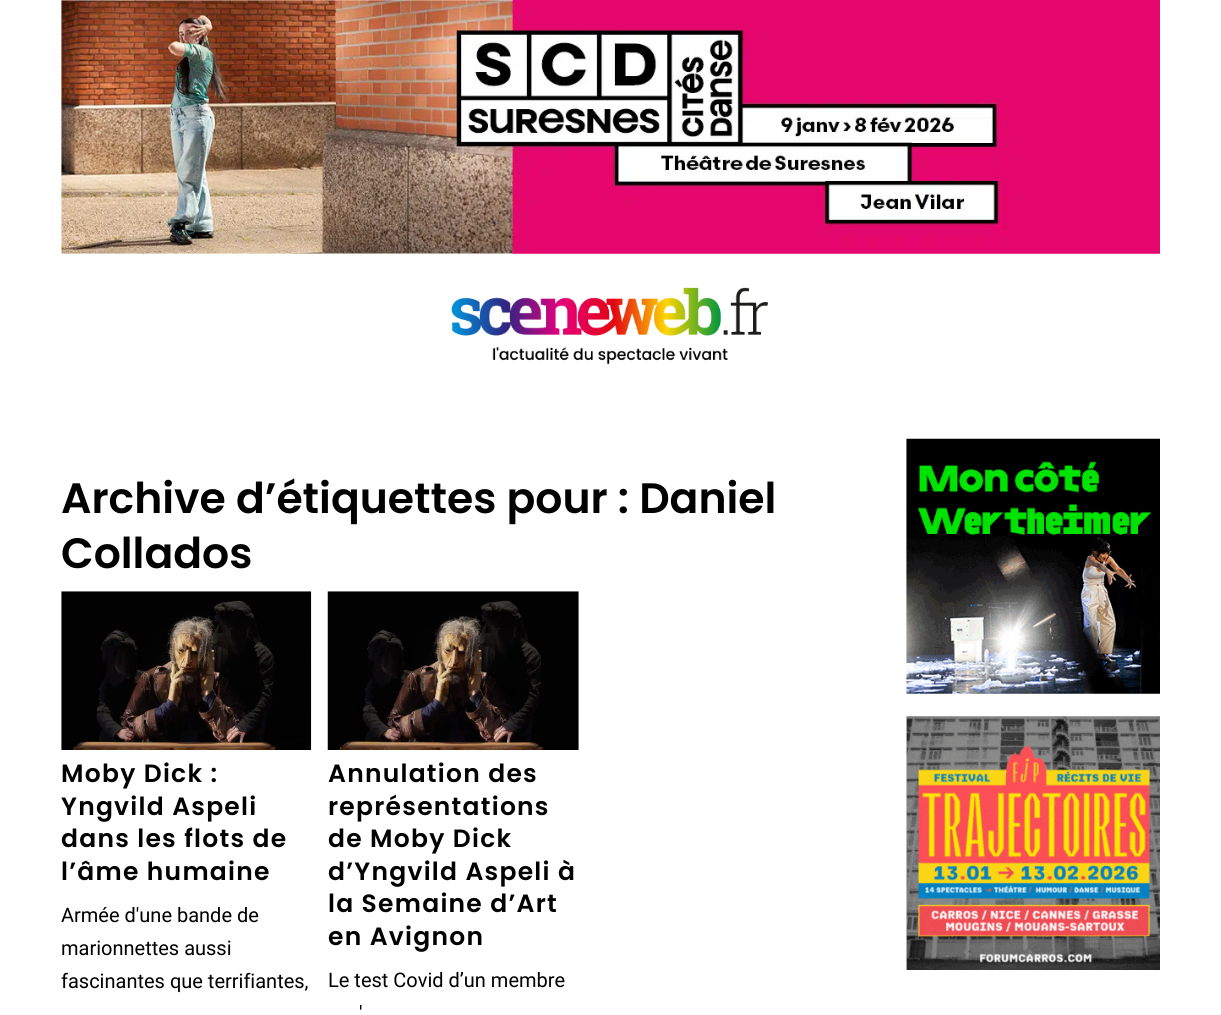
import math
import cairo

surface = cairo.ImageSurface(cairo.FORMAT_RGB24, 1221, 1015)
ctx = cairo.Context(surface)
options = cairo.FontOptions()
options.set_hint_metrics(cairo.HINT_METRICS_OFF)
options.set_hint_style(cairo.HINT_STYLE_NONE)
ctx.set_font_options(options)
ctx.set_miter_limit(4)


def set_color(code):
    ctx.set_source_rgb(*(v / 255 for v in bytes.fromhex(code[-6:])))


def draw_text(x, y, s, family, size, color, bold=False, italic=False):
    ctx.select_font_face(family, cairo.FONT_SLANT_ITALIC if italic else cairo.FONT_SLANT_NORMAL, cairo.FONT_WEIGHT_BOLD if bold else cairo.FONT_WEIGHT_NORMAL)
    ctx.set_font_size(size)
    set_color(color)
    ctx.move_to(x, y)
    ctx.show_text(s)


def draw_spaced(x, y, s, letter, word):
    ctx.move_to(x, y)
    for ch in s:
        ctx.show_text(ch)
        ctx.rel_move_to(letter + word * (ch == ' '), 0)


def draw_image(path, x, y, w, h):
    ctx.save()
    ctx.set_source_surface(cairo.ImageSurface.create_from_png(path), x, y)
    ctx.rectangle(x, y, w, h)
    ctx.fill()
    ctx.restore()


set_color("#ffffff")
ctx.paint()
draw_image("assets/img1.png", 61, 0, 1099, 254)
draw_image("assets/img2.png", 451, 287, 317, 78)
draw_text(61, 513, "Archive d’étiquettes pour : Daniel", "Poppins SemiBold", 42.5, "#000000")
draw_text(61, 568, "Collados", "Poppins SemiBold", 42.5, "#000000")
draw_image("assets/img3.png", 61, 591, 251, 159)
ctx.set_font_size(25)
draw_spaced(61, 782, "Moby Dick :", 1.25, 0)
draw_spaced(61, 815, "Yngvild Aspeli", 1.25, 0)
draw_spaced(61, 847, "dans les flots de", 1.25, 0)
draw_spaced(61, 880, "l’âme humaine", 1.25, 0)
draw_text(61, 922, "Armée d'une bande de", "Roboto", 20, "#000000")
draw_text(61, 955, "marionnettes aussi", "Roboto", 20, "#000000")
draw_text(61, 988, "fascinantes que terrifiantes,", "Roboto", 20, "#000000")
draw_image("assets/img4.png", 327, 591, 252, 159)
ctx.select_font_face("Poppins SemiBold")
ctx.set_font_size(25)
draw_spaced(328, 782, "Annulation des", 1.25, 0)
draw_spaced(328, 815, "représentations", 1.25, 0)
draw_spaced(328, 847, "de Moby Dick", 1.25, 0)
draw_spaced(328, 880, "d’Yngvild Aspeli à", 1.25, 0)
draw_spaced(328, 912, "la Semaine d’Art", 1.25, 0)
draw_spaced(328, 945, "en Avignon", 1.25, 0)
draw_text(328, 987, "Le test Covid d’un membre", "Roboto", 20, "#000000")
draw_text(359, 1020, "'", "Roboto", 20, "#000000")
draw_image("assets/img5.png", 906, 438, 254, 256)
draw_image("assets/img6.png", 906, 716, 254, 254)
surface.write_to_png("output.png")
